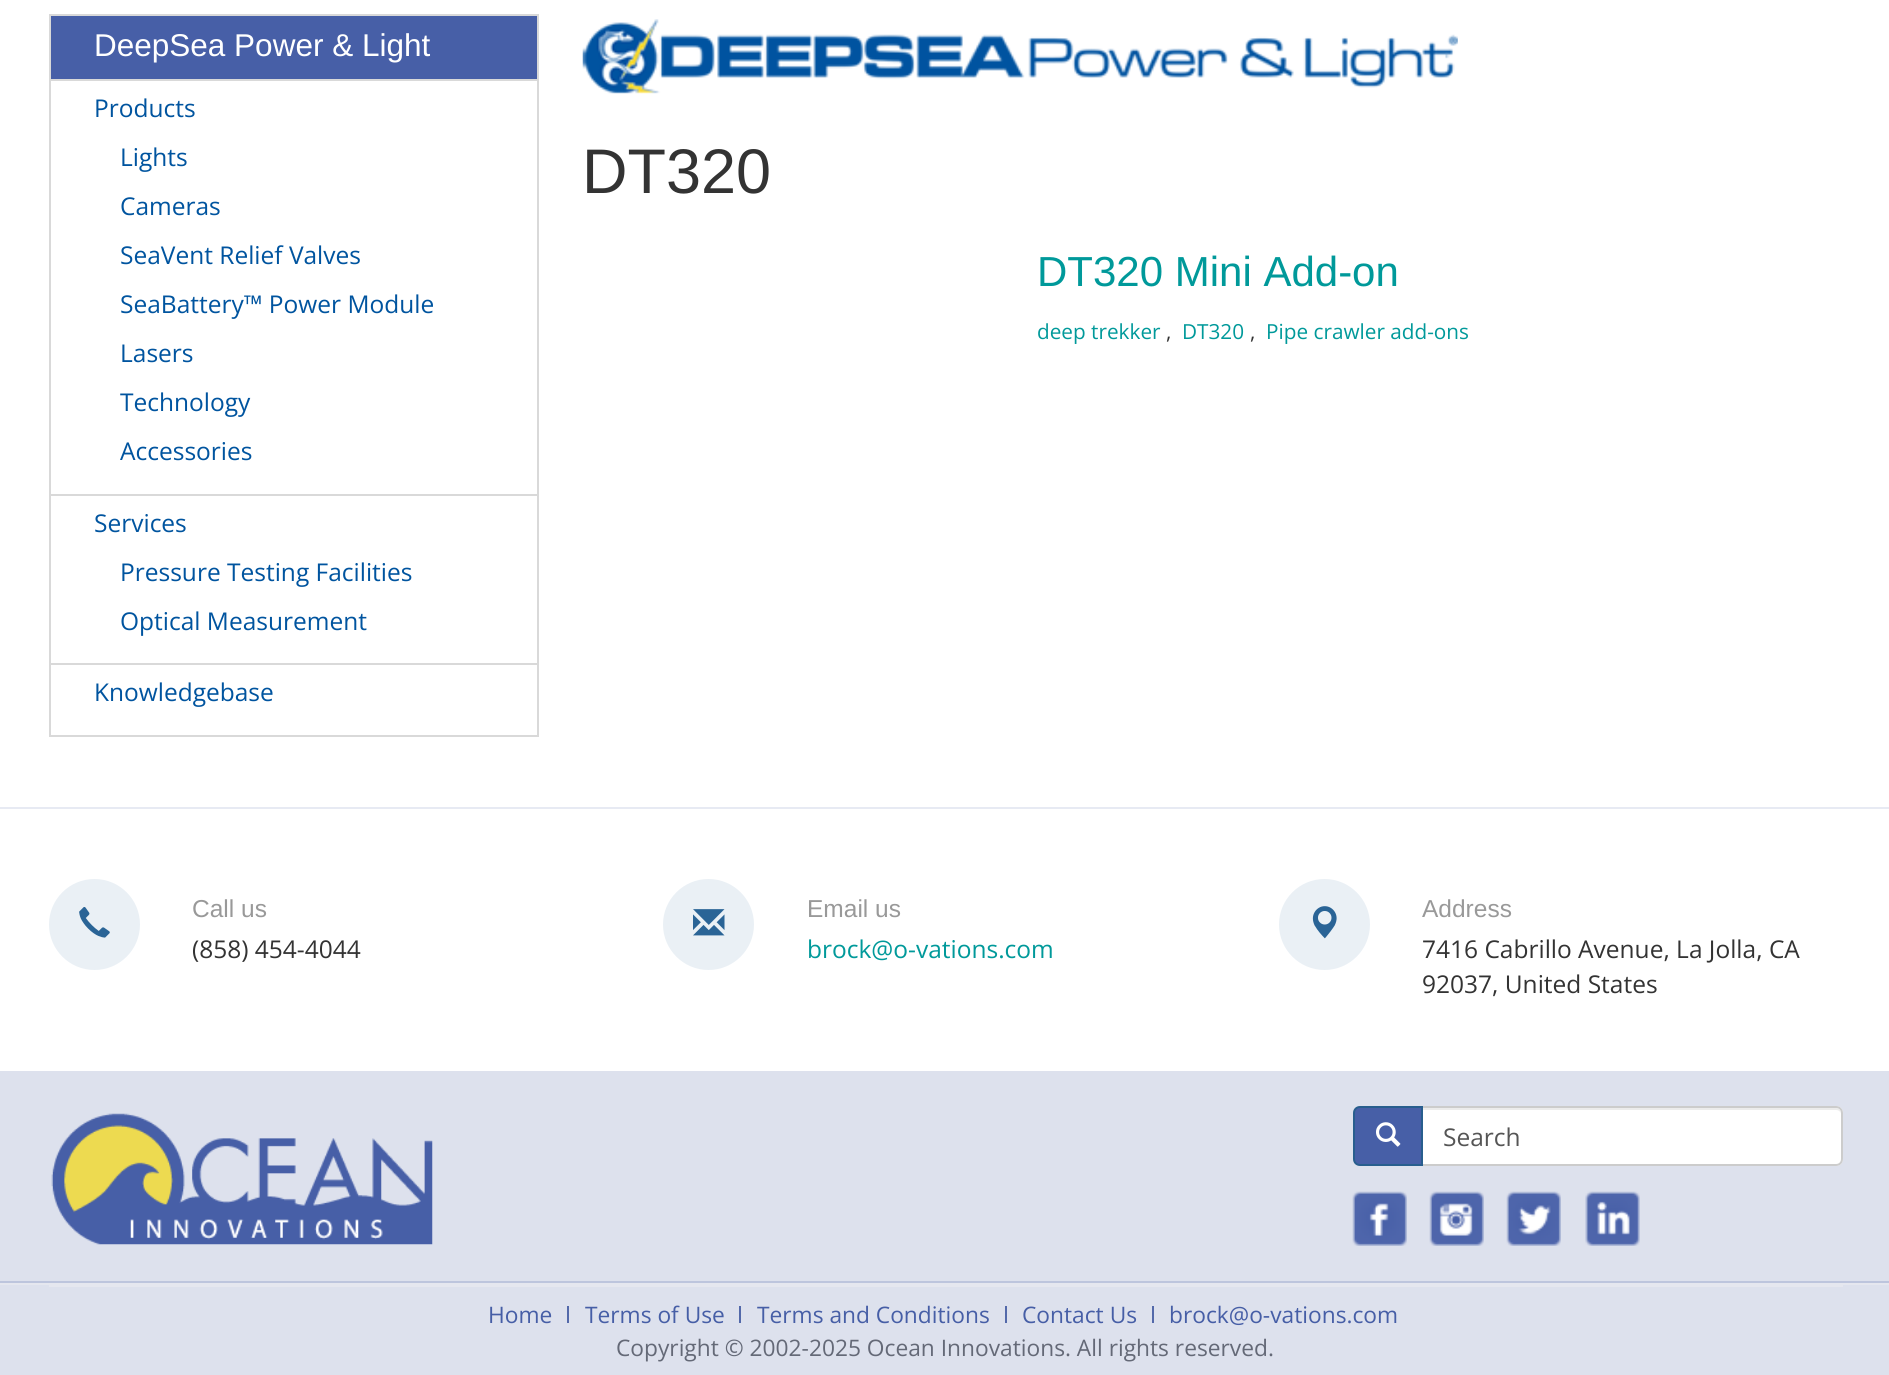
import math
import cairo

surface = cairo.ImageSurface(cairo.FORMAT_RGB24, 1889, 1375)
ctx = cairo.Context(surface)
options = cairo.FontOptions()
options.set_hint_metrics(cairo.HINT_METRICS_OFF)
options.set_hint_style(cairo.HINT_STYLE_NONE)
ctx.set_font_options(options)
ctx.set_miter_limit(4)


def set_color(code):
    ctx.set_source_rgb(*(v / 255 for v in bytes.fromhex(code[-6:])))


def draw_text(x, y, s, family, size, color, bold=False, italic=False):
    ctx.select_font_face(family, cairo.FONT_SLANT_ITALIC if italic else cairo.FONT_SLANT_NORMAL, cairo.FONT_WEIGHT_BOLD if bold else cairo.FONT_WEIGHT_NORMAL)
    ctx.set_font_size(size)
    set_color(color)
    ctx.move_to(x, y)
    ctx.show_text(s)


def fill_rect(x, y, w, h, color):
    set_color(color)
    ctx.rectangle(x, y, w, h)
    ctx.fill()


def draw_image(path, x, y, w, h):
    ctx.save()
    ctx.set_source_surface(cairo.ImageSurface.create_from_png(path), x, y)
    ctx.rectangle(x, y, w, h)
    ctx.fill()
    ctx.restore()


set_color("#ffffff")
ctx.paint()
ctx.rectangle(50, 15, 488, 721)
set_color("#d9d9d9")
ctx.stroke()
fill_rect(51, 16, 486, 63, "#475fa7")
draw_text(94, 56, "DeepSea Power & Light", "Liberation Sans", 31.5, "#ffffff")
fill_rect(51, 79, 486, 2, "#d9d9d9")
draw_text(94, 117, "Products", "Open Sans", 24.5, "#00549f")
draw_text(120, 166, "Lights", "Open Sans", 24.5, "#00549f")
draw_text(120, 215, "Cameras", "Open Sans", 24.5, "#00549f")
draw_text(120, 264, "SeaVent Relief Valves", "Open Sans", 24.5, "#00549f")
draw_text(120, 313, "SeaBattery™ Power Module", "Open Sans", 24.5, "#00549f")
draw_text(120, 362, "Lasers", "Open Sans", 24.5, "#00549f")
draw_text(120, 411, "Technology", "Open Sans", 24.5, "#00549f")
draw_text(120, 460, "Accessories", "Open Sans", 24.5, "#00549f")
fill_rect(51, 494, 486, 2, "#d9d9d9")
draw_text(94, 532, "Services", "Open Sans", 24.5, "#00549f")
draw_text(120, 581, "Pressure Testing Facilities", "Open Sans", 24.5, "#00549f")
draw_text(120, 630, "Optical Measurement", "Open Sans", 24.5, "#00549f")
fill_rect(51, 663, 486, 2, "#d9d9d9")
draw_text(94, 701, "Knowledgebase", "Open Sans", 24.5, "#00549f")
draw_image("assets/img1.png", 582, 19, 876, 75)
draw_text(582, 193, "DT320", "Liberation Sans", 63, "#333333")
draw_text(1037, 286, "DT320 Mini Add-on", "Liberation Sans", 42, "#00999a")
draw_text(1037, 339, "deep trekker", "Open Sans", 20.75, "#00999a")
draw_text(1166, 339, ",", "Open Sans", 20.75, "#333333")
draw_text(1182, 339, "DT320", "Open Sans", 20.75, "#00999a")
draw_text(1250, 339, ",", "Open Sans", 20.75, "#333333")
draw_text(1266, 339, "Pipe crawler add-ons", "Open Sans", 20.75, "#00999a")
fill_rect(0, 807, 1889, 2, "#e7eaf3")
set_color("#eaf0f5")
ctx.new_path()
ctx.arc(94.5, 924.5, 45.5, 0, 2 * math.pi)
ctx.fill()
draw_image("assets/img2.png", 79, 907, 31, 31)
draw_text(192, 917, "Call us", "Liberation Sans", 24.5, "#999999")
draw_text(192, 958, "(858) 454-4044", "Open Sans", 24.5, "#333333")
set_color("#eaf0f5")
ctx.new_path()
ctx.arc(708.5, 924.5, 45.5, 0, 2 * math.pi)
ctx.fill()
draw_image("assets/img3.png", 693, 909, 32, 27)
draw_text(807, 917, "Email us", "Liberation Sans", 24.5, "#999999")
draw_text(807, 958, "brock@o-vations.com", "Open Sans", 24.5, "#00999a")
set_color("#eaf0f5")
ctx.new_path()
ctx.arc(1324.5, 924.5, 45.5, 0, 2 * math.pi)
ctx.fill()
draw_image("assets/img4.png", 1312, 906, 25, 33)
draw_text(1422, 917, "Address", "Liberation Sans", 24.5, "#999999")
draw_text(1422, 958, "7416 Cabrillo Avenue, La Jolla, CA", "Open Sans", 24.5, "#333333")
draw_text(1422, 993, "92037, United States", "Open Sans", 24.5, "#333333")
fill_rect(0, 1071, 1889, 210, "#dde1ed")
fill_rect(0, 1281, 1889, 2, "#bdc5dd")
draw_image("assets/img5.png", 51, 1113, 382, 132)
set_color("#ffffff")
ctx.new_path()
ctx.move_to(1421, 1106)
ctx.line_to(1836, 1106)
ctx.curve_to(1840, 1106, 1843, 1109, 1843, 1113)
ctx.line_to(1843, 1159)
ctx.curve_to(1843, 1163, 1840, 1166, 1836, 1166)
ctx.line_to(1421, 1166)
ctx.close_path()
ctx.fill()
set_color("#ececec")
ctx.new_path()
ctx.move_to(1423, 1110)
ctx.line_to(1836, 1110)
ctx.curve_to(1839, 1110, 1841, 1112, 1841, 1115)
ctx.curve_to(1841, 1112, 1840, 1108, 1836, 1108)
ctx.line_to(1423, 1108)
ctx.close_path()
ctx.fill()
ctx.new_path()
ctx.move_to(1422, 1107)
ctx.line_to(1836, 1107)
ctx.curve_to(1839.5, 1107, 1842, 1109.5, 1842, 1113)
ctx.line_to(1842, 1159)
ctx.curve_to(1842, 1162.5, 1839.5, 1165, 1836, 1165)
ctx.line_to(1422, 1165)
ctx.close_path()
set_color("#cccccc")
ctx.stroke()
set_color("#475fa7")
ctx.new_path()
ctx.move_to(1360, 1107)
ctx.line_to(1422, 1107)
ctx.line_to(1422, 1165)
ctx.line_to(1360, 1165)
ctx.curve_to(1356.5, 1165, 1354, 1162.5, 1354, 1159)
ctx.line_to(1354, 1113)
ctx.curve_to(1354, 1109.5, 1356.5, 1107, 1360, 1107)
ctx.close_path()
ctx.fill_preserve()
set_color("#285e8e")
ctx.stroke()
draw_image("assets/img6.png", 1376, 1122, 25, 25)
draw_text(1443, 1146, "Search", "Open Sans", 24.5, "#555555")
draw_image("assets/img7.png", 1352, 1191, 55, 55)
draw_image("assets/img8.png", 1429, 1191, 55, 55)
draw_image("assets/img9.png", 1506, 1191, 55, 55)
draw_image("assets/img10.png", 1585, 1191, 55, 55)
fill_rect(0, 1285, 1889, 90, "#dde1ed")
fill_rect(0, 1283, 1889, 2, "#e5e7ef")
fill_rect(49, 1285, 1794, 2, "#e5e7ef")
fill_rect(567, 1306, 2, 17, "#5369aa")
draw_text(488, 1323, "Home", "Open Sans", 22.75, "#465ea6")
fill_rect(739, 1306, 2, 17, "#5369aa")
draw_text(585, 1323, "Terms of Use", "Open Sans", 22.75, "#465ea6")
fill_rect(1005, 1306, 2, 17, "#5369aa")
draw_text(757, 1323, "Terms and Conditions", "Open Sans", 22.75, "#465ea6")
fill_rect(1152, 1306, 2, 17, "#5369aa")
draw_text(1022, 1323, "Contact Us", "Open Sans", 22.75, "#465ea6")
draw_text(1169, 1323, "brock@o-vations.com", "Open Sans", 22.75, "#465ea6")
draw_text(616, 1356, "Copyright © 2002-2025 Ocean Innovations. All rights reserved.", "Open Sans", 22.75, "#646977")
surface.write_to_png("output.png")
